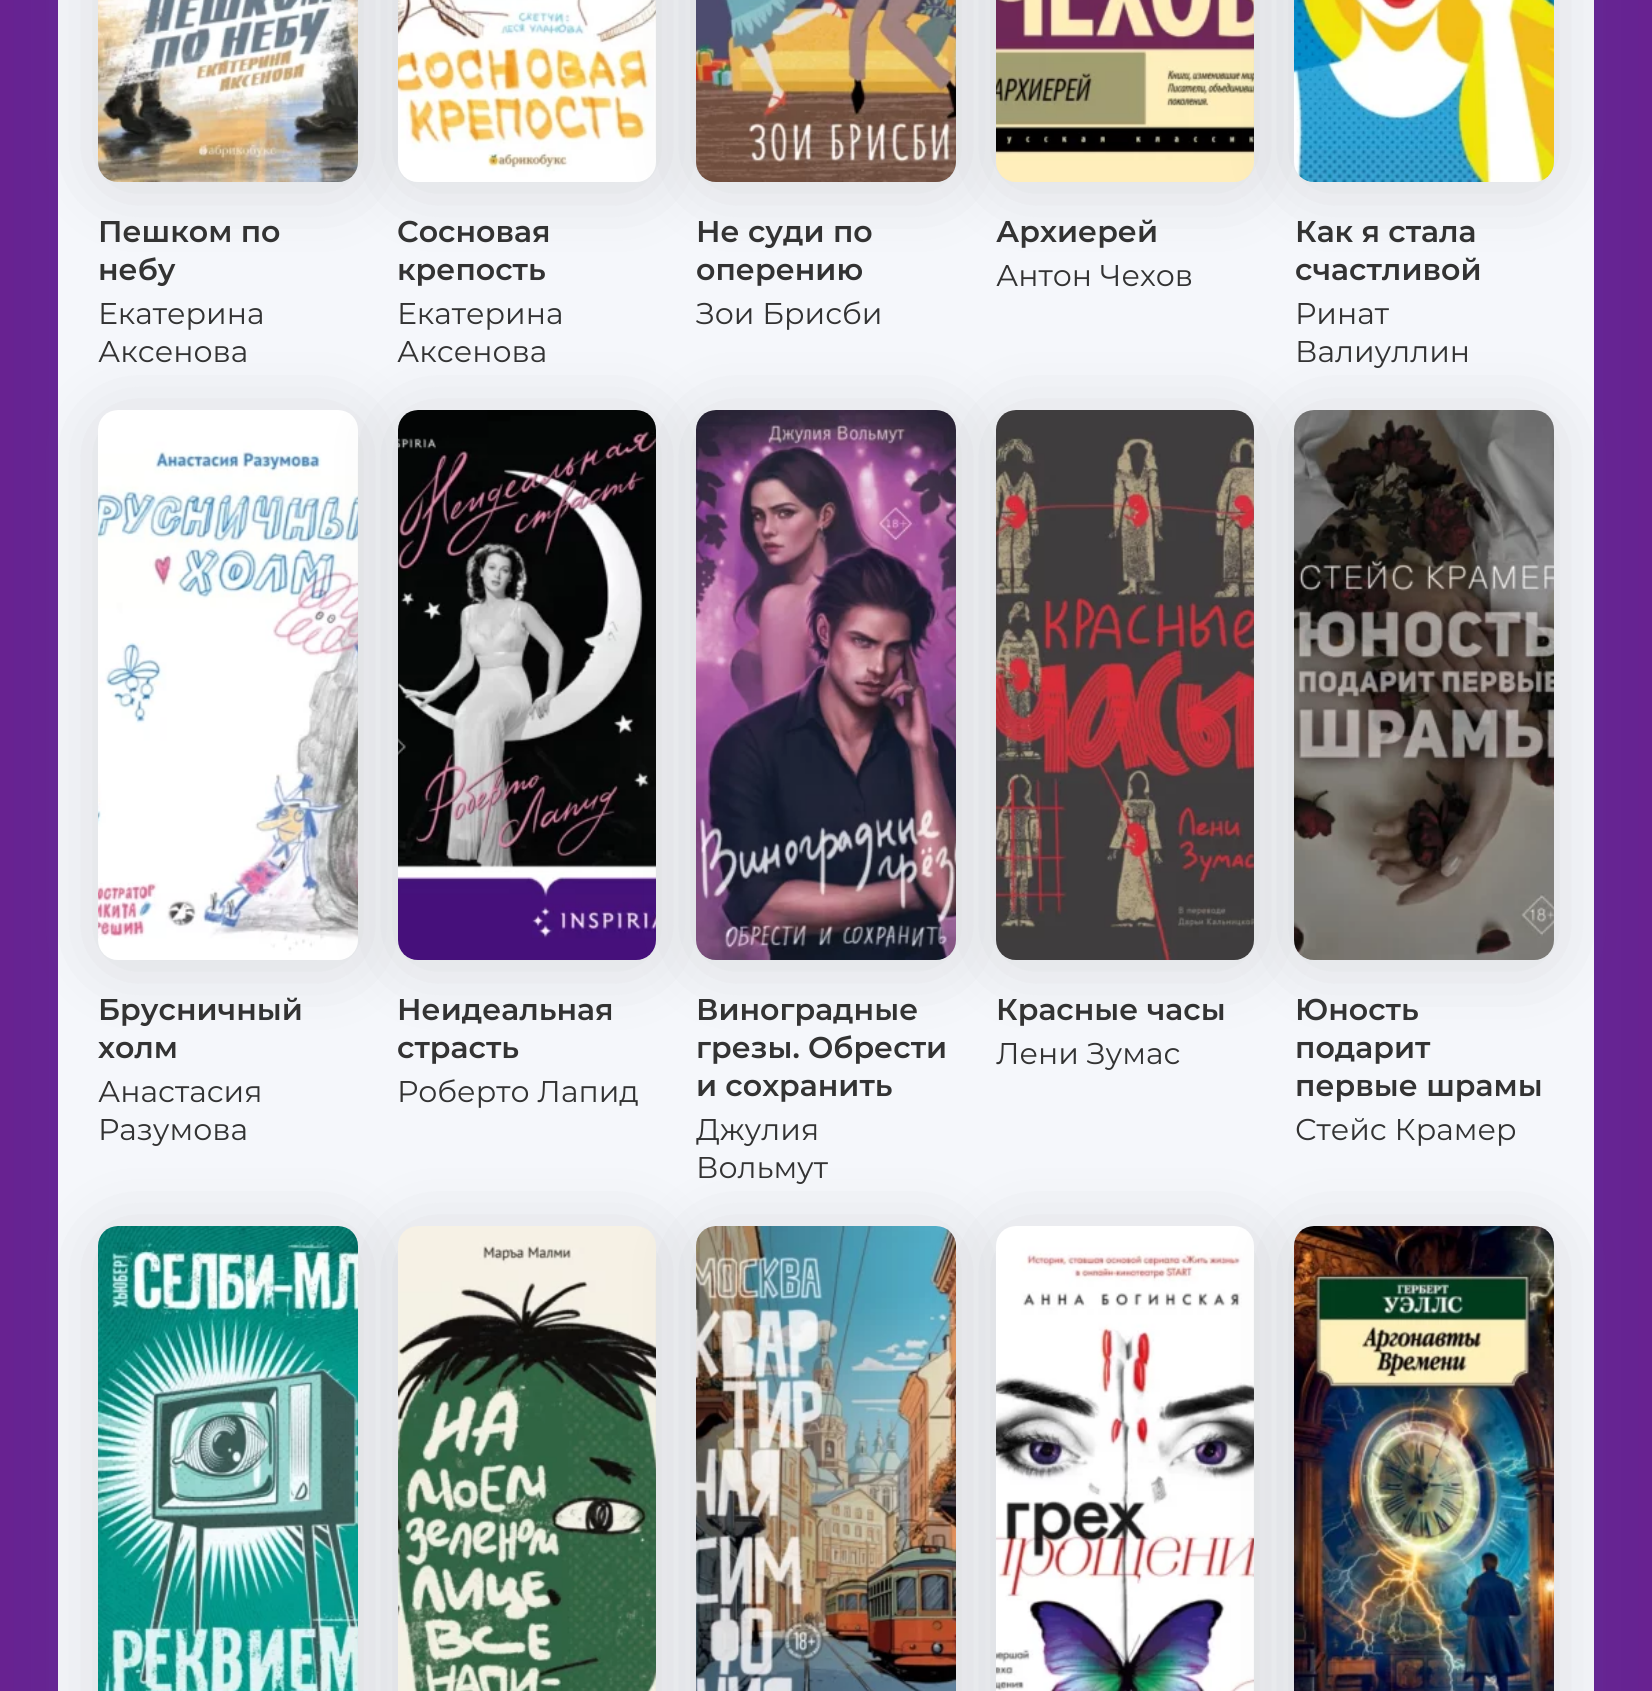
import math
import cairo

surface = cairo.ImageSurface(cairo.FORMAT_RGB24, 1652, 1691)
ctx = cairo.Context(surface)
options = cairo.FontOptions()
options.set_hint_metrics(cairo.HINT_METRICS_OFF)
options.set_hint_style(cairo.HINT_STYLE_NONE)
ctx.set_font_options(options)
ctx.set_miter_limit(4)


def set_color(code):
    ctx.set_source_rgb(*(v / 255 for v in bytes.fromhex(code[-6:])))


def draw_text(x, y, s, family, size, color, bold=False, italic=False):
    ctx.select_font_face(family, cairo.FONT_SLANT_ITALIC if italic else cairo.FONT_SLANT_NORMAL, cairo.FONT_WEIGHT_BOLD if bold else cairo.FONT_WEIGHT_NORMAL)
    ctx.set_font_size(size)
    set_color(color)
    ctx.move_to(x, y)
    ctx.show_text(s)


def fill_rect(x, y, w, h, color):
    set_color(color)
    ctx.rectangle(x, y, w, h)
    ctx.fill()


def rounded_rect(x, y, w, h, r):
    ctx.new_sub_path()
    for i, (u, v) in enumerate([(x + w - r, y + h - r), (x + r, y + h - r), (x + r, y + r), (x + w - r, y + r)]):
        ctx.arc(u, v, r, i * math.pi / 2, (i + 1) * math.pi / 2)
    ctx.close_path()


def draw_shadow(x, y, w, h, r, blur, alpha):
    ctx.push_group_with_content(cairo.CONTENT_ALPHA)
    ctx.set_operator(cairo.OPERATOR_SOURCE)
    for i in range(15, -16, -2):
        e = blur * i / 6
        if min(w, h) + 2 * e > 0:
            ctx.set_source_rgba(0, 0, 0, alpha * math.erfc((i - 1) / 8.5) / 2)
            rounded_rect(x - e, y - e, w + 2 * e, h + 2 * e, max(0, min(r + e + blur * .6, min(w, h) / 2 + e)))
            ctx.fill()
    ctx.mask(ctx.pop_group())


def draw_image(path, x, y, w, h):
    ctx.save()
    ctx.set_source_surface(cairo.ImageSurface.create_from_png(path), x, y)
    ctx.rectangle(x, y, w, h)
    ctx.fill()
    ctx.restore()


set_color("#68218f")
ctx.paint()
set_color("#4554e1")
draw_shadow(58, -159, 1536, 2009, 0, 53, 0.15)
fill_rect(58, 0, 1536, 1691, "#f5f7fb")
set_color("#333333")
draw_shadow(98, -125, 260, 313, 20, 35, 0.15)
draw_image("assets/img1.png", 98, 0, 260, 182)
draw_text(98, 242, "Пешком по", "Montserrat SemiBold", 30, "#333333")
draw_text(98, 280, "небу", "Montserrat SemiBold", 30, "#333333")
draw_text(98, 324, "Екатерина", "Montserrat", 30, "#333333")
draw_text(98, 362, "Аксенова", "Montserrat", 30, "#333333")
set_color("#333333")
draw_shadow(398, -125, 258, 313, 20, 35, 0.15)
draw_image("assets/img2.png", 398, 0, 258, 182)
draw_text(397, 242, "Сосновая", "Montserrat SemiBold", 30, "#333333")
draw_text(397, 280, "крепость", "Montserrat SemiBold", 30, "#333333")
draw_text(397, 324, "Екатерина", "Montserrat", 30, "#333333")
draw_text(397, 362, "Аксенова", "Montserrat", 30, "#333333")
set_color("#333333")
draw_shadow(696, -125, 260, 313, 20, 35, 0.15)
draw_image("assets/img3.png", 696, 0, 260, 182)
draw_text(696, 242, "Не суди по", "Montserrat SemiBold", 30, "#333333")
draw_text(696, 280, "оперению", "Montserrat SemiBold", 30, "#333333")
draw_text(696, 324, "Зои Брисби", "Montserrat", 30, "#333333")
set_color("#333333")
draw_shadow(996, -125, 258, 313, 20, 35, 0.15)
draw_image("assets/img4.png", 996, 0, 258, 182)
draw_text(996, 242, "Архиерей", "Montserrat SemiBold", 30, "#333333")
draw_text(996, 286, "Антон Чехов", "Montserrat", 30, "#333333")
set_color("#333333")
draw_shadow(1294, -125, 260, 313, 20, 35, 0.15)
draw_image("assets/img5.png", 1294, 0, 260, 182)
draw_text(1295, 242, "Как я стала", "Montserrat SemiBold", 30, "#333333")
draw_text(1295, 280, "счастливой", "Montserrat SemiBold", 30, "#333333")
draw_text(1295, 324, "Ринат", "Montserrat", 30, "#333333")
draw_text(1295, 362, "Валиуллин", "Montserrat", 30, "#333333")
set_color("#333333")
draw_shadow(98, 416, 260, 550, 20, 35, 0.15)
draw_image("assets/img6.png", 98, 410, 260, 550)
draw_text(98, 1020, "Брусничный", "Montserrat SemiBold", 30, "#333333")
draw_text(98, 1058, "холм", "Montserrat SemiBold", 30, "#333333")
draw_text(98, 1102, "Анастасия", "Montserrat", 30, "#333333")
draw_text(98, 1140, "Разумова", "Montserrat", 30, "#333333")
set_color("#333333")
draw_shadow(398, 416, 258, 550, 20, 35, 0.15)
draw_image("assets/img7.png", 398, 410, 258, 550)
draw_text(397, 1020, "Неидеальная", "Montserrat SemiBold", 30, "#333333")
draw_text(397, 1058, "страсть", "Montserrat SemiBold", 30, "#333333")
draw_text(397, 1102, "Роберто Лапид", "Montserrat", 30, "#333333")
set_color("#333333")
draw_shadow(696, 416, 260, 550, 20, 35, 0.15)
draw_image("assets/img8.png", 696, 410, 260, 550)
draw_text(696, 1020, "Виноградные", "Montserrat SemiBold", 30, "#333333")
draw_text(696, 1058, "грезы. Обрести", "Montserrat SemiBold", 30, "#333333")
draw_text(696, 1096, "и сохранить", "Montserrat SemiBold", 30, "#333333")
draw_text(696, 1140, "Джулия", "Montserrat", 30, "#333333")
draw_text(696, 1178, "Вольмут", "Montserrat", 30, "#333333")
set_color("#333333")
draw_shadow(996, 416, 258, 550, 20, 35, 0.15)
draw_image("assets/img9.png", 996, 410, 258, 550)
draw_text(996, 1020, "Красные часы", "Montserrat SemiBold", 30, "#333333")
draw_text(996, 1064, "Лени Зумас", "Montserrat", 30, "#333333")
set_color("#333333")
draw_shadow(1294, 416, 260, 550, 20, 35, 0.15)
draw_image("assets/img10.png", 1294, 410, 260, 550)
draw_text(1295, 1020, "Юность", "Montserrat SemiBold", 30, "#333333")
draw_text(1295, 1058, "подарит", "Montserrat SemiBold", 30, "#333333")
draw_text(1295, 1096, "первые шрамы", "Montserrat SemiBold", 30, "#333333")
draw_text(1295, 1140, "Стейс Крамер", "Montserrat", 30, "#333333")
set_color("#333333")
draw_shadow(98, 1232, 260, 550, 20, 35, 0.15)
draw_image("assets/img11.png", 98, 1226, 260, 465)
draw_shadow(398, 1232, 258, 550, 20, 35, 0.15)
draw_image("assets/img12.png", 398, 1226, 258, 465)
draw_shadow(696, 1232, 260, 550, 20, 35, 0.15)
draw_image("assets/img13.png", 696, 1226, 260, 465)
draw_shadow(996, 1232, 258, 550, 20, 35, 0.15)
draw_image("assets/img14.png", 996, 1226, 258, 465)
draw_shadow(1294, 1232, 260, 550, 20, 35, 0.15)
draw_image("assets/img15.png", 1294, 1226, 260, 465)
surface.write_to_png("output.png")
